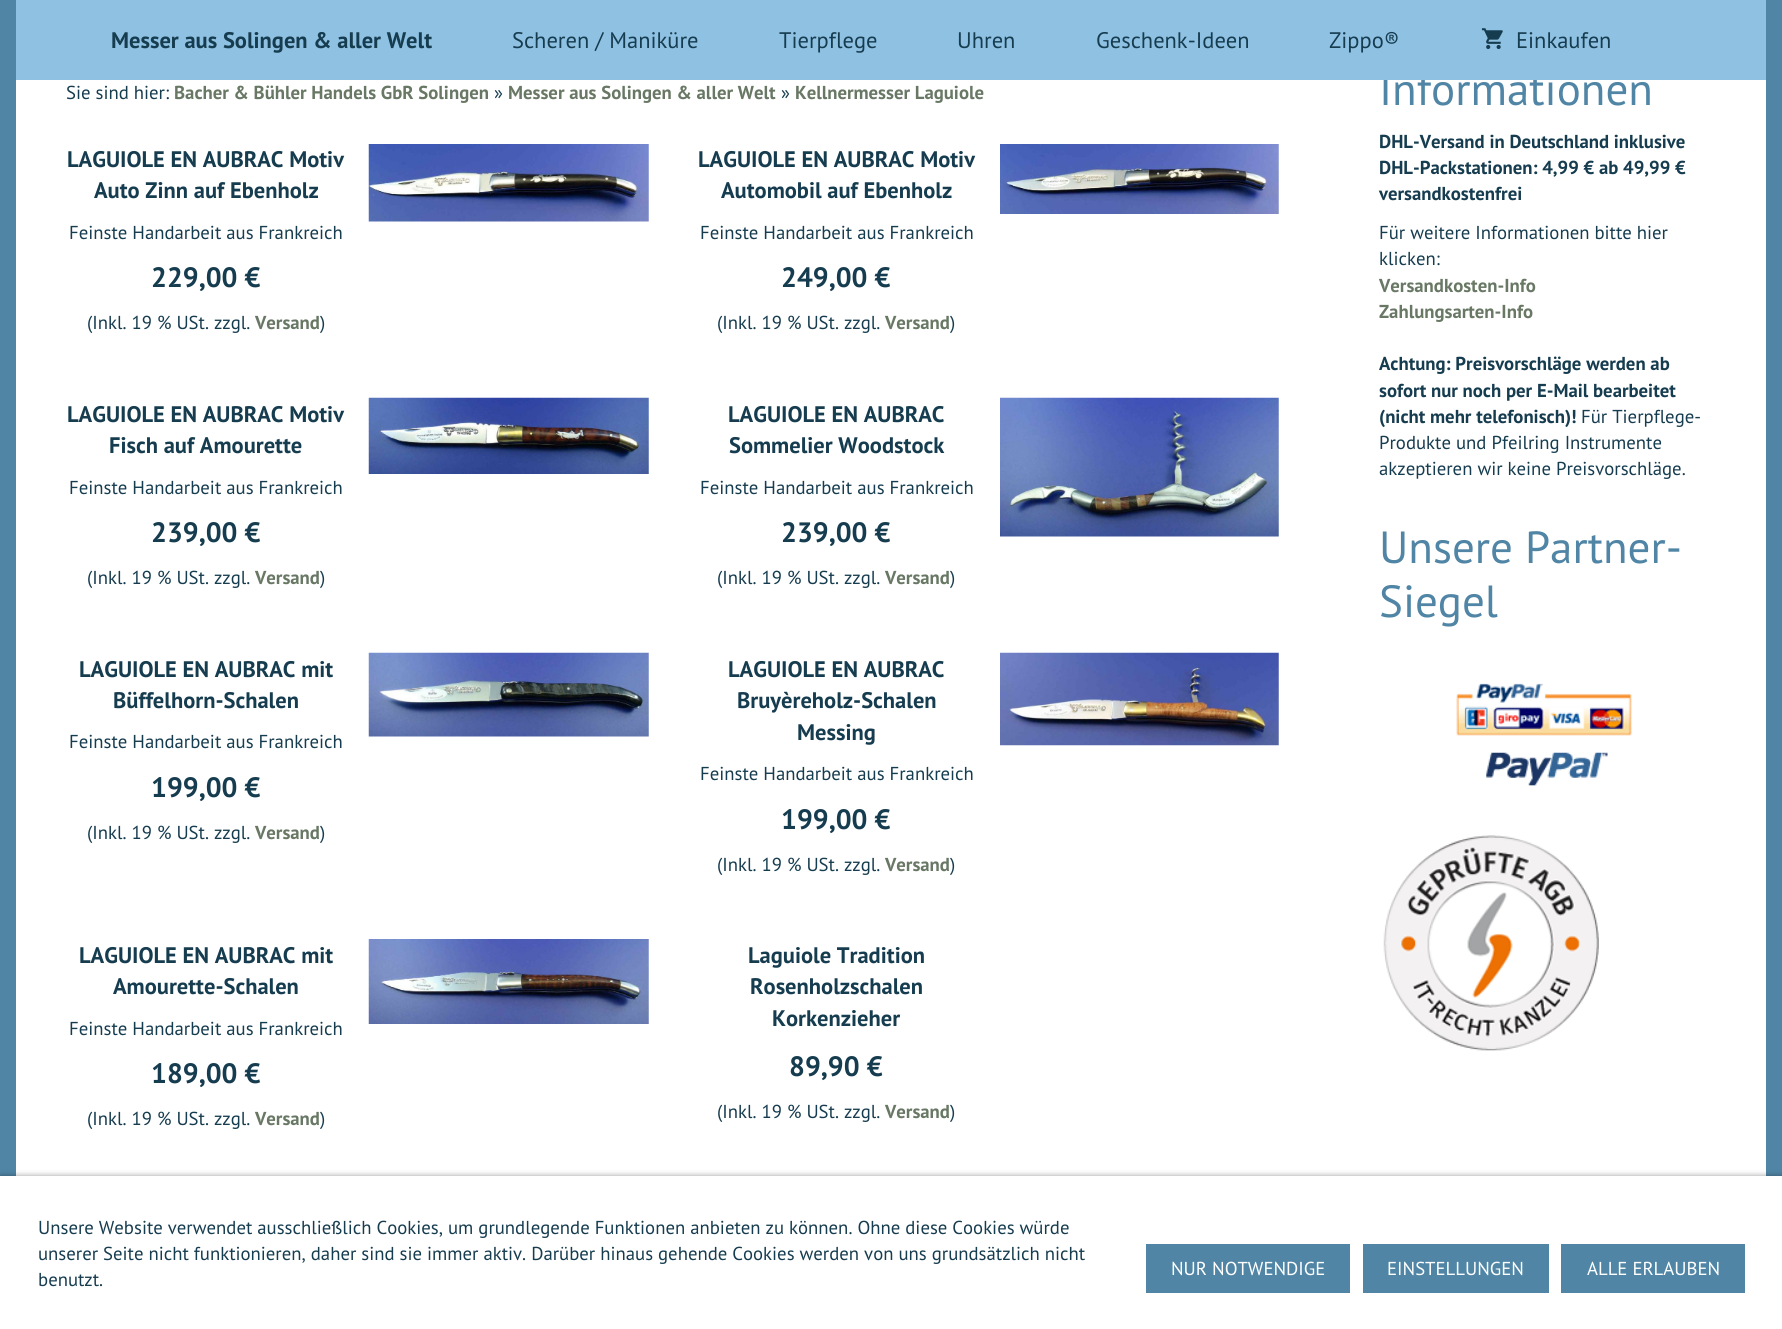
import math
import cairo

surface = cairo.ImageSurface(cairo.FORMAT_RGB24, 1782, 1329)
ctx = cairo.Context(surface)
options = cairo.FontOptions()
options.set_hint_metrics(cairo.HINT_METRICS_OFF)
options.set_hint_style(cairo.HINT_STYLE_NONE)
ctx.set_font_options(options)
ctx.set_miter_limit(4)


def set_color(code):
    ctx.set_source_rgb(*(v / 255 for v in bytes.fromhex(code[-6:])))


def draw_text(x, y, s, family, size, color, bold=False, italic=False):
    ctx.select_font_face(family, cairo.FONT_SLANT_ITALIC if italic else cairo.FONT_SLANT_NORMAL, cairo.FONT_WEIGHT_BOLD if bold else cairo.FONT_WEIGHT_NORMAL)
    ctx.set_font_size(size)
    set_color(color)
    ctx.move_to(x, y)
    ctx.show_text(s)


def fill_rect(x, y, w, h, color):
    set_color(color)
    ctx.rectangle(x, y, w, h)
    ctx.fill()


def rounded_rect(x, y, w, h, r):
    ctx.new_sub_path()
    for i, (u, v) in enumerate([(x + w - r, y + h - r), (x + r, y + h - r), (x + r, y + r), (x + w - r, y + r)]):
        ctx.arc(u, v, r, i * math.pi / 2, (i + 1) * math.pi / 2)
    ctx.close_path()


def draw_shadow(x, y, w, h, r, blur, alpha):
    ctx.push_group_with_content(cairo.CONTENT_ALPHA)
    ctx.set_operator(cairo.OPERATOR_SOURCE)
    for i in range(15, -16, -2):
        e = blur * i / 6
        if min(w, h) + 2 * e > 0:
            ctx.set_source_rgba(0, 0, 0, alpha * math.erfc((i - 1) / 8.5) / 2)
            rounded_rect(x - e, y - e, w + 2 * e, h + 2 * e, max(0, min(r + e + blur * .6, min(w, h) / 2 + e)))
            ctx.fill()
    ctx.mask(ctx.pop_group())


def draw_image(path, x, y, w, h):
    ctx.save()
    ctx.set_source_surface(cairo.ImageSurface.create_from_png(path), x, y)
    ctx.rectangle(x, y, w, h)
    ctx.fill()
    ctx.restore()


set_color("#5085a5")
ctx.paint()
fill_rect(16, 80, 1750, 1096, "#ffffff")
draw_text(1379, 105, "Informationen", "PT Sans", 45, "#5085a5")
fill_rect(16, 0, 1750, 80, "#8fc1e3")
draw_text(111, 48, "Messer aus Solingen & aller Welt", "PT Sans", 22.5, "#163c4f", bold=True)
draw_text(512, 48, "Scheren / Maniküre", "PT Sans", 22.5, "#163c4f")
draw_text(779, 48, "Tierpflege", "PT Sans", 22.5, "#163c4f")
draw_text(957, 48, "Uhren", "PT Sans", 22.5, "#163c4f")
draw_text(1096, 48, "Geschenk-Ideen", "PT Sans", 22.5, "#163c4f")
draw_text(1329, 48, "Zippo®", "PT Sans", 22.5, "#163c4f")
draw_image("assets/img1.png", 1481, 28, 22, 21)
draw_text(1516, 48, "Einkaufen", "PT Sans", 22.5, "#163c4f")
draw_text(66, 99, "Sie sind hier:", "PT Sans", 18.75, "#163c4f")
draw_text(174, 99, "Bacher & Bühler Handels GbR Solingen", "PT Sans", 18.75, "#687864", bold=True)
draw_text(494, 99, "»", "PT Sans", 18.75, "#163c4f")
draw_text(508, 99, "Messer aus Solingen & aller Welt", "PT Sans", 18.75, "#687864", bold=True)
draw_text(781, 99, "»", "PT Sans", 18.75, "#163c4f")
draw_text(795, 99, "Kellnermesser Laguiole", "PT Sans", 18.75, "#687864", bold=True)
draw_text(67, 167, "LAGUIOLE EN AUBRAC Motiv", "PT Sans", 22.5, "#163c4f", bold=True)
draw_text(94, 198, "Auto Zinn auf Ebenholz", "PT Sans", 22.5, "#163c4f", bold=True)
draw_text(69, 239, "Feinste Handarbeit aus Frankreich", "PT Sans", 18.75, "#163c4f")
draw_text(151, 287, "229,00 €", "PT Sans", 28, "#163c4f", bold=True)
draw_text(87, 329, "(Inkl. 19 % USt. zzgl.", "PT Sans", 18.75, "#163c4f")
draw_text(255, 329, "Versand", "PT Sans", 18.75, "#687864", bold=True)
draw_text(320, 329, ")", "PT Sans", 18.75, "#163c4f")
draw_image("assets/img2.png", 368, 144, 281, 78)
draw_text(698, 167, "LAGUIOLE EN AUBRAC Motiv", "PT Sans", 22.5, "#163c4f", bold=True)
draw_text(721, 198, "Automobil auf Ebenholz", "PT Sans", 22.5, "#163c4f", bold=True)
draw_text(700, 239, "Feinste Handarbeit aus Frankreich", "PT Sans", 18.75, "#163c4f")
draw_text(781, 287, "249,00 €", "PT Sans", 28, "#163c4f", bold=True)
draw_text(717, 329, "(Inkl. 19 % USt. zzgl.", "PT Sans", 18.75, "#163c4f")
draw_text(885, 329, "Versand", "PT Sans", 18.75, "#687864", bold=True)
draw_text(950, 329, ")", "PT Sans", 18.75, "#163c4f")
draw_image("assets/img3.png", 1000, 144, 279, 70)
draw_text(67, 422, "LAGUIOLE EN AUBRAC Motiv", "PT Sans", 22.5, "#163c4f", bold=True)
draw_text(109, 453, "Fisch auf Amourette", "PT Sans", 22.5, "#163c4f", bold=True)
draw_text(69, 494, "Feinste Handarbeit aus Frankreich", "PT Sans", 18.75, "#163c4f")
draw_text(151, 542, "239,00 €", "PT Sans", 28, "#163c4f", bold=True)
draw_text(87, 584, "(Inkl. 19 % USt. zzgl.", "PT Sans", 18.75, "#163c4f")
draw_text(255, 584, "Versand", "PT Sans", 18.75, "#687864", bold=True)
draw_text(320, 584, ")", "PT Sans", 18.75, "#163c4f")
draw_image("assets/img4.png", 368, 397, 281, 77)
draw_text(728, 422, "LAGUIOLE EN AUBRAC", "PT Sans", 22.5, "#163c4f", bold=True)
draw_text(729, 453, "Sommelier Woodstock", "PT Sans", 22.5, "#163c4f", bold=True)
draw_text(700, 494, "Feinste Handarbeit aus Frankreich", "PT Sans", 18.75, "#163c4f")
draw_text(781, 542, "239,00 €", "PT Sans", 28, "#163c4f", bold=True)
draw_text(717, 584, "(Inkl. 19 % USt. zzgl.", "PT Sans", 18.75, "#163c4f")
draw_text(885, 584, "Versand", "PT Sans", 18.75, "#687864", bold=True)
draw_text(950, 584, ")", "PT Sans", 18.75, "#163c4f")
draw_image("assets/img5.png", 1000, 397, 279, 140)
draw_text(79, 677, "LAGUIOLE EN AUBRAC mit", "PT Sans", 22.5, "#163c4f", bold=True)
draw_text(113, 708, "Büffelhorn-Schalen", "PT Sans", 22.5, "#163c4f", bold=True)
draw_text(69, 748, "Feinste Handarbeit aus Frankreich", "PT Sans", 18.75, "#163c4f")
draw_text(151, 797, "199,00 €", "PT Sans", 28, "#163c4f", bold=True)
draw_text(87, 839, "(Inkl. 19 % USt. zzgl.", "PT Sans", 18.75, "#163c4f")
draw_text(255, 839, "Versand", "PT Sans", 18.75, "#687864", bold=True)
draw_text(320, 839, ")", "PT Sans", 18.75, "#163c4f")
draw_image("assets/img6.png", 368, 652, 281, 85)
draw_text(728, 677, "LAGUIOLE EN AUBRAC", "PT Sans", 22.5, "#163c4f", bold=True)
draw_text(737, 708, "Bruyèreholz-Schalen", "PT Sans", 22.5, "#163c4f", bold=True)
draw_text(797, 740, "Messing", "PT Sans", 22.5, "#163c4f", bold=True)
draw_text(700, 780, "Feinste Handarbeit aus Frankreich", "PT Sans", 18.75, "#163c4f")
draw_text(781, 829, "199,00 €", "PT Sans", 28, "#163c4f", bold=True)
draw_text(717, 871, "(Inkl. 19 % USt. zzgl.", "PT Sans", 18.75, "#163c4f")
draw_text(885, 871, "Versand", "PT Sans", 18.75, "#687864", bold=True)
draw_text(950, 871, ")", "PT Sans", 18.75, "#163c4f")
draw_image("assets/img7.png", 1000, 652, 279, 94)
draw_text(79, 963, "LAGUIOLE EN AUBRAC mit", "PT Sans", 22.5, "#163c4f", bold=True)
draw_text(113, 994, "Amourette-Schalen", "PT Sans", 22.5, "#163c4f", bold=True)
draw_text(69, 1035, "Feinste Handarbeit aus Frankreich", "PT Sans", 18.75, "#163c4f")
draw_text(151, 1083, "189,00 €", "PT Sans", 28, "#163c4f", bold=True)
draw_text(87, 1125, "(Inkl. 19 % USt. zzgl.", "PT Sans", 18.75, "#163c4f")
draw_text(255, 1125, "Versand", "PT Sans", 18.75, "#687864", bold=True)
draw_text(320, 1125, ")", "PT Sans", 18.75, "#163c4f")
draw_image("assets/img8.png", 368, 939, 281, 85)
draw_text(748, 963, "Laguiole Tradition", "PT Sans", 22.5, "#163c4f", bold=True)
draw_text(750, 994, "Rosenholzschalen", "PT Sans", 22.5, "#163c4f", bold=True)
draw_text(772, 1026, "Korkenzieher", "PT Sans", 22.5, "#163c4f", bold=True)
draw_text(789, 1076, "89,90 €", "PT Sans", 28, "#163c4f", bold=True)
draw_text(717, 1118, "(Inkl. 19 % USt. zzgl.", "PT Sans", 18.75, "#163c4f")
draw_text(885, 1118, "Versand", "PT Sans", 18.75, "#687864", bold=True)
draw_text(950, 1118, ")", "PT Sans", 18.75, "#163c4f")
draw_text(1379, 148, "DHL-Versand in Deutschland inklusive", "PT Sans", 18.75, "#163c4f", bold=True)
draw_text(1379, 174, "DHL-Packstationen: 4,99 € ab 49,99 €", "PT Sans", 18.75, "#163c4f", bold=True)
draw_text(1379, 200, "versandkostenfrei", "PT Sans", 18.75, "#163c4f", bold=True)
draw_text(1379, 239, "Für weitere Informationen bitte hier", "PT Sans", 18.75, "#163c4f")
draw_text(1379, 265, "klicken:", "PT Sans", 18.75, "#163c4f")
draw_text(1379, 292, "Versandkosten-Info", "PT Sans", 18.75, "#687864", bold=True)
draw_text(1379, 318, "Zahlungsarten-Info", "PT Sans", 18.75, "#687864", bold=True)
draw_text(1379, 370, "Achtung: Preisvorschläge werden ab", "PT Sans", 18.75, "#163c4f", bold=True)
draw_text(1379, 397, "sofort nur noch per E-Mail bearbeitet", "PT Sans", 18.75, "#163c4f", bold=True)
draw_text(1379, 423, "(nicht mehr telefonisch)!", "PT Sans", 18.75, "#163c4f", bold=True)
draw_text(1581, 423, "Für Tierpflege-", "PT Sans", 18.75, "#163c4f")
draw_text(1379, 449, "Produkte und Pfeilring Instrumente", "PT Sans", 18.75, "#163c4f")
draw_text(1379, 475, "akzeptieren wir keine Preisvorschläge.", "PT Sans", 18.75, "#163c4f")
draw_text(1379, 563, "Unsere Partner-", "PT Sans", 45, "#5085a5")
draw_text(1379, 617, "Siegel", "PT Sans", 45, "#5085a5")
draw_image("assets/img9.png", 1456, 683, 176, 53)
draw_image("assets/img10.png", 1486, 752, 122, 34)
draw_image("assets/img11.png", 1383, 835, 216, 216)
set_color("#000000")
draw_shadow(0, 1176, 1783, 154, 0, 3, 0.4)
fill_rect(0, 1176, 1782, 153, "#ffffff")
draw_text(38, 1234, "Unsere Website verwendet ausschließlich Cookies, um grundlegende Funktionen anbieten zu können. Ohne diese Cookies würde", "PT Sans", 18.75, "#163c4f")
draw_text(38, 1260, "unserer Seite nicht funktionieren, daher sind sie immer aktiv. Darüber hinaus gehende Cookies werden von uns grundsätzlich nicht", "PT Sans", 18.75, "#163c4f")
draw_text(38, 1286, "benutzt.", "PT Sans", 18.75, "#163c4f")
fill_rect(1146, 1244, 204, 49, "#5085a5")
draw_text(1171, 1275, "NUR NOTWENDIGE", "PT Sans", 18.75, "#ffffff")
fill_rect(1363, 1244, 186, 49, "#5085a5")
draw_text(1387, 1275, "EINSTELLUNGEN", "PT Sans", 18.75, "#ffffff")
fill_rect(1561, 1244, 184, 49, "#5085a5")
draw_text(1587, 1275, "ALLE ERLAUBEN", "PT Sans", 18.75, "#ffffff")
surface.write_to_png("output.png")
